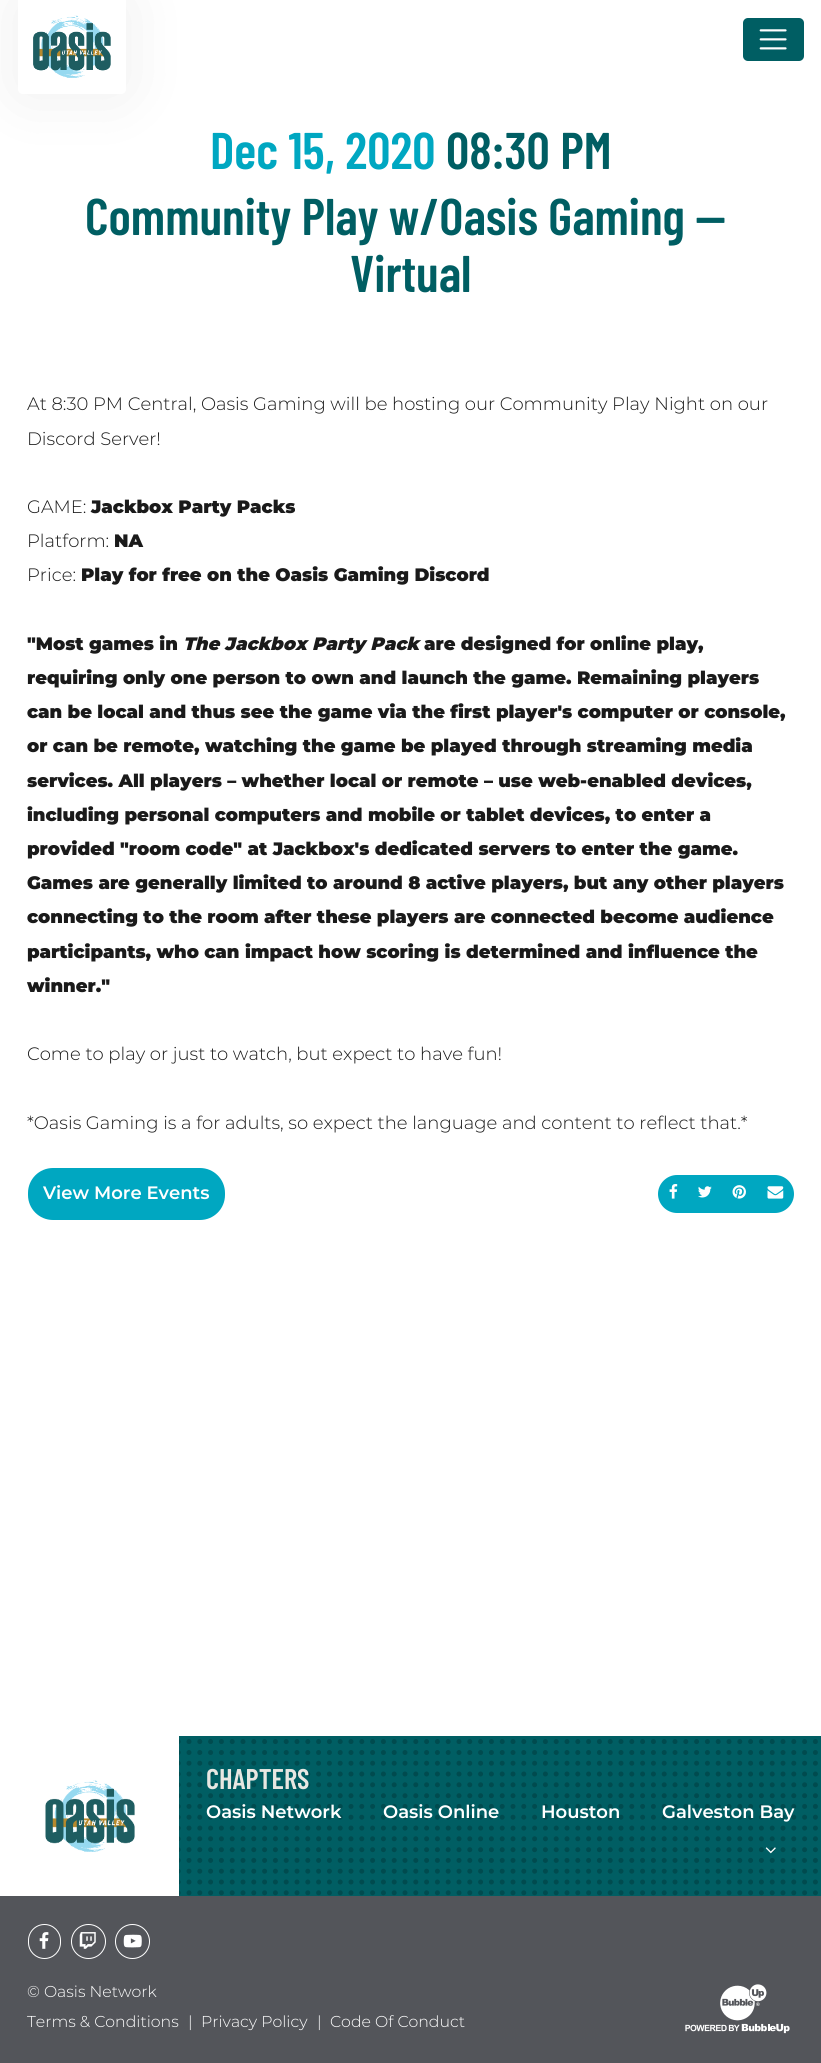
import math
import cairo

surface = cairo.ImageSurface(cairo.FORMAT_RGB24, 821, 2063)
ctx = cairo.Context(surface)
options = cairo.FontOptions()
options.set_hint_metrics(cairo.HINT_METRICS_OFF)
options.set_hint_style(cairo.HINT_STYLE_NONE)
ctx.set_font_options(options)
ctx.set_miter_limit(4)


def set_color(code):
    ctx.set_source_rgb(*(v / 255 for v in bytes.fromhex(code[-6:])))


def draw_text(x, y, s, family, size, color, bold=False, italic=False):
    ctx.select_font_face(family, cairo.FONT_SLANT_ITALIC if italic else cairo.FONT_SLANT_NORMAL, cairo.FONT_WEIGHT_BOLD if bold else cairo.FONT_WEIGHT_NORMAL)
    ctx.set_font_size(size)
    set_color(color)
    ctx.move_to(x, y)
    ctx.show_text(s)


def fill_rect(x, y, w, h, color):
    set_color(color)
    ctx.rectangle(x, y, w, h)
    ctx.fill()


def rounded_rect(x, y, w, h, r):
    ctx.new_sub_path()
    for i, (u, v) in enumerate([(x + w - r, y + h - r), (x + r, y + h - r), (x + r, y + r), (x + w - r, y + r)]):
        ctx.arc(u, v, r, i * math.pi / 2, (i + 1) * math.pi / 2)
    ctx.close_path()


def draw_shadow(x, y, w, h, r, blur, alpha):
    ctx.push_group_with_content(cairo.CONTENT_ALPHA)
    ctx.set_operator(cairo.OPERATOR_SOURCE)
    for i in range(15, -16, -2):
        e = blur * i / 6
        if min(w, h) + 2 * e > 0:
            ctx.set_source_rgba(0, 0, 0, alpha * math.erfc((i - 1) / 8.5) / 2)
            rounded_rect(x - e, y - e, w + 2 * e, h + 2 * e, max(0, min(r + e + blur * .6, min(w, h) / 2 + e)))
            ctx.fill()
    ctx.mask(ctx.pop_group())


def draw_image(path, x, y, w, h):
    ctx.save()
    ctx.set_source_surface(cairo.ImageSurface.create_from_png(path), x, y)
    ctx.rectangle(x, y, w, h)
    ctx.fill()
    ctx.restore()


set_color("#ffffff")
ctx.paint()
set_color("#000000")
draw_shadow(18, 0, 108, 94, 5, 34, 0.07)
set_color("#ffffff")
ctx.new_path()
ctx.move_to(18, 0)
ctx.line_to(126, 0)
ctx.line_to(126, 89)
ctx.curve_to(126, 92, 124, 94, 121, 94)
ctx.line_to(23, 94)
ctx.curve_to(20, 94, 18, 92, 18, 89)
ctx.close_path()
ctx.fill()
draw_image("assets/img1.png", 33, 15, 78, 63)
set_color("#005e63")
rounded_rect(743, 18, 61, 43, 5)
ctx.fill()
draw_image("assets/img2.png", 759, 29, 28, 21)
draw_text(210, 169, "Dec 15, 2020", "Barlow Condensed SemiBold", 51.6, "#00a7c1")
draw_text(446, 169, "08:30 PM", "Barlow Condensed SemiBold", 51.6, "#005e63")
draw_text(85, 235, "Community Play w/Oasis Gaming —", "Barlow Condensed SemiBold", 51.6, "#005e63")
draw_text(350, 292, "Virtual", "Barlow Condensed SemiBold", 51.6, "#005e63")
draw_text(27, 410, "At 8:30 PM Central, Oasis Gaming will be hosting our Community Play Night on our", "Montserrat Light", 18, "#1a1a1a")
draw_text(27, 445, "Discord Server!", "Montserrat Light", 18, "#1a1a1a")
draw_text(27, 513, "GAME:", "Montserrat Light", 18, "#1a1a1a")
draw_text(91, 513, "Jackbox Party Packs", "Montserrat Black", 18, "#1a1a1a")
draw_text(27, 547, "Platform:", "Montserrat Light", 18, "#1a1a1a")
draw_text(114, 547, "NA", "Montserrat Black", 18, "#1a1a1a")
draw_text(27, 581, "Price:", "Montserrat Light", 18, "#1a1a1a")
draw_text(81, 581, "Play for free on the Oasis Gaming Discord", "Montserrat Black", 18, "#1a1a1a")
draw_text(27, 650, "\"Most games in", "Montserrat Black", 18, "#1a1a1a")
draw_text(183, 650, "The Jackbox Party Pack", "Montserrat Black", 18, "#1a1a1a", italic=True)
draw_text(424, 650, "are designed for online play,", "Montserrat Black", 18, "#1a1a1a")
draw_text(27, 684, "requiring only one person to own and launch the game. Remaining players", "Montserrat Black", 18, "#1a1a1a")
draw_text(27, 718, "can be local and thus see the game via the first player's computer or console,", "Montserrat Black", 18, "#1a1a1a")
draw_text(27, 752, "or can be remote, watching the game be played through streaming media", "Montserrat Black", 18, "#1a1a1a")
draw_text(27, 787, "services. All players – whether local or remote – use web-enabled devices,", "Montserrat Black", 18, "#1a1a1a")
draw_text(27, 821, "including personal computers and mobile or tablet devices, to enter a", "Montserrat Black", 18, "#1a1a1a")
draw_text(27, 855, "provided \"room code\" at Jackbox's dedicated servers to enter the game.", "Montserrat Black", 18, "#1a1a1a")
draw_text(27, 889, "Games are generally limited to around 8 active players, but any other players", "Montserrat Black", 18, "#1a1a1a")
draw_text(27, 923, "connecting to the room after these players are connected become audience", "Montserrat Black", 18, "#1a1a1a")
draw_text(27, 958, "participants, who can impact how scoring is determined and influence the", "Montserrat Black", 18, "#1a1a1a")
draw_text(27, 992, "winner.\"", "Montserrat Black", 18, "#1a1a1a")
draw_text(27, 1060, "Come to play or just to watch, but expect to have fun!", "Montserrat Light", 18, "#1a1a1a")
draw_text(27, 1129, "*Oasis Gaming is a for adults, so expect the language and content to reflect that.*", "Montserrat Light", 18, "#1a1a1a")
set_color("#00a7c1")
rounded_rect(29.5, 1169.5, 194, 49, 23.5)
ctx.fill_preserve()
ctx.set_line_width(3)
ctx.stroke()
draw_text(43, 1199, "View More Events", "Montserrat SemiBold", 18, "#ffffff")
set_color("#00a7c1")
ctx.new_path()
ctx.move_to(677, 1176.5)
ctx.line_to(687.5, 1176.5)
ctx.line_to(687.5, 1211.5)
ctx.line_to(677, 1211.5)
ctx.curve_to(667.5, 1211.5, 659.5, 1203.5, 659.5, 1194)
ctx.curve_to(659.5, 1184.5, 667.5, 1176.5, 677, 1176.5)
ctx.close_path()
ctx.fill_preserve()
ctx.stroke()
draw_image("assets/img3.png", 669, 1184, 9, 15)
fill_rect(689, 1175, 66, 38, "#00a7c1")
draw_image("assets/img4.png", 698, 1186, 14, 12)
ctx.new_path()
ctx.move_to(756.5, 1176.5)
ctx.line_to(775, 1176.5)
ctx.curve_to(784.5, 1176.5, 792.5, 1184.5, 792.5, 1194)
ctx.curve_to(792.5, 1203.5, 784.5, 1211.5, 775, 1211.5)
ctx.line_to(756.5, 1211.5)
ctx.close_path()
ctx.fill_preserve()
ctx.stroke()
draw_image("assets/img5.png", 767, 1186, 17, 13)
draw_image("assets/img6.png", 732, 1185, 14, 14)
fill_rect(0, 1896, 821, 167, "#53555a")
fill_rect(179, 1736, 642, 160, "#005e63")
ctx.new_path()
ctx.move_to(5.4, 1741.6)
ctx.line_to(815.7, 1741.6)
set_color("#004b4f")
ctx.set_line_width(5)
ctx.set_line_cap(cairo.LINE_CAP_ROUND)
ctx.set_dash([0, 10.8])
ctx.stroke()
ctx.new_path()
ctx.move_to(5.4, 1752.5)
ctx.line_to(815.7, 1752.5)
ctx.stroke()
ctx.new_path()
ctx.move_to(5.4, 1763.2)
ctx.line_to(815.7, 1763.2)
ctx.stroke()
ctx.new_path()
ctx.move_to(5.4, 1774)
ctx.line_to(815.7, 1774)
ctx.stroke()
ctx.new_path()
ctx.move_to(5.4, 1784.8)
ctx.line_to(815.7, 1784.8)
ctx.stroke()
ctx.new_path()
ctx.move_to(5.4, 1795.7)
ctx.line_to(815.7, 1795.7)
ctx.stroke()
ctx.new_path()
ctx.move_to(5.4, 1806.4)
ctx.line_to(815.7, 1806.4)
ctx.stroke()
ctx.new_path()
ctx.move_to(5.4, 1817.2)
ctx.line_to(815.7, 1817.2)
ctx.stroke()
ctx.new_path()
ctx.move_to(5.4, 1828.1)
ctx.line_to(815.7, 1828.1)
ctx.stroke()
ctx.new_path()
ctx.move_to(5.4, 1838.8)
ctx.line_to(815.7, 1838.8)
ctx.stroke()
ctx.new_path()
ctx.move_to(5.4, 1849.7)
ctx.line_to(815.7, 1849.7)
ctx.stroke()
ctx.new_path()
ctx.move_to(5.4, 1860.4)
ctx.line_to(815.7, 1860.4)
ctx.stroke()
ctx.new_path()
ctx.move_to(5.4, 1871.2)
ctx.line_to(815.7, 1871.2)
ctx.stroke()
ctx.new_path()
ctx.move_to(5.4, 1882)
ctx.line_to(815.7, 1882)
ctx.stroke()
ctx.new_path()
ctx.move_to(5.4, 1892.8)
ctx.line_to(815.7, 1892.8)
ctx.stroke()
fill_rect(2, 1739, 177, 157, "#ffffff")
draw_image("assets/img7.png", 45, 1780, 90, 72)
draw_text(206, 1789, "CHAPTERS", "Barlow Condensed SemiBold", 28.5, "#e8e7e2")
draw_text(206, 1818, "Oasis Network", "Montserrat SemiBold", 18, "#ffffff")
draw_text(383, 1818, "Oasis Online", "Montserrat SemiBold", 18, "#ffffff")
draw_text(541, 1818, "Houston", "Montserrat SemiBold", 18, "#ffffff")
draw_text(662, 1818, "Galveston Bay", "Montserrat SemiBold", 18, "#ffffff")
draw_image("assets/img8.png", 765, 1847, 11, 7)
rounded_rect(28.5, 1924.5, 32, 34, 16)
ctx.set_line_width(1)
ctx.set_line_cap(cairo.LINE_CAP_BUTT)
ctx.set_dash([])
ctx.stroke()
draw_image("assets/img9.png", 39, 1932, 10, 17)
ctx.arc(88.5, 1941.5, 17, 0, 2 * math.pi)
ctx.stroke()
draw_image("assets/img10.png", 79, 1932, 17, 17)
ctx.arc(132.5, 1941.5, 17, 0, 2 * math.pi)
ctx.stroke()
draw_image("assets/img11.png", 123, 1934, 19, 14)
draw_text(27, 1997, "© Oasis Network", "Montserrat Light", 15.75, "#ffffff")
draw_text(27, 2027, "Terms & Conditions", "Montserrat Light", 15.75, "#ffffff")
draw_text(188, 2027, "|", "Montserrat Light", 15.75, "#ffffff")
draw_text(201, 2027, "Privacy Policy", "Montserrat Light", 15.75, "#ffffff")
draw_text(317, 2027, "|", "Montserrat Light", 15.75, "#ffffff")
draw_text(330, 2027, "Code Of Conduct", "Montserrat Light", 15.75, "#ffffff")
draw_image("assets/img12.png", 685, 1984, 105, 50)
surface.write_to_png("output.png")
